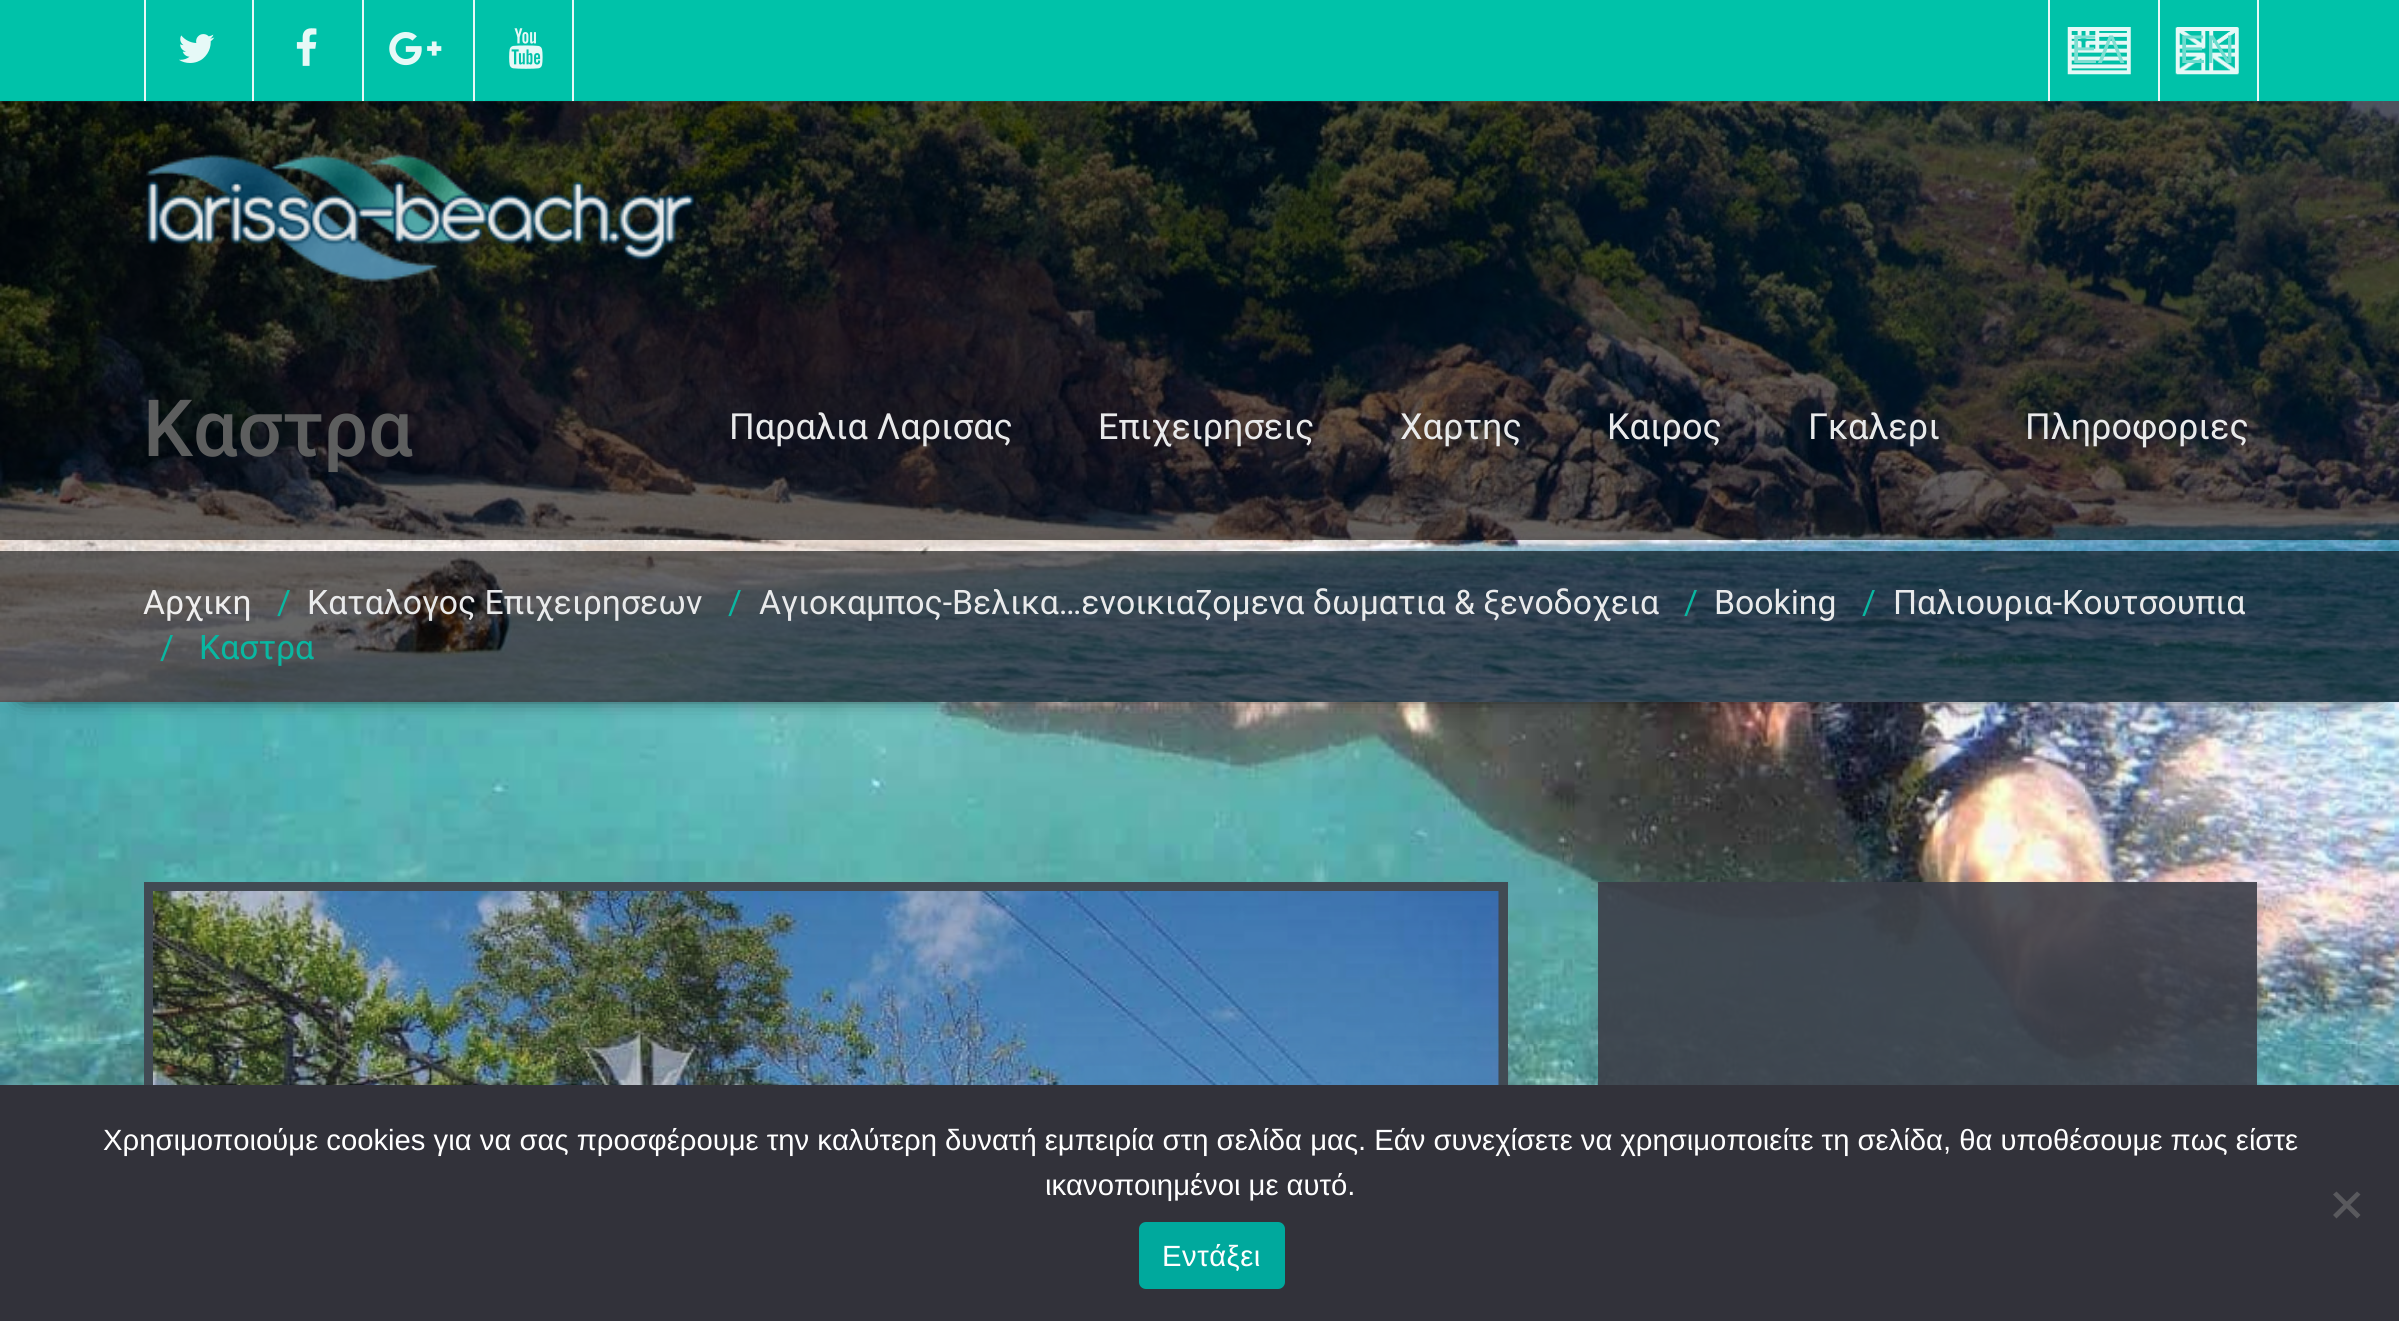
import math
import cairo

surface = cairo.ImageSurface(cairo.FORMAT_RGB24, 2399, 1321)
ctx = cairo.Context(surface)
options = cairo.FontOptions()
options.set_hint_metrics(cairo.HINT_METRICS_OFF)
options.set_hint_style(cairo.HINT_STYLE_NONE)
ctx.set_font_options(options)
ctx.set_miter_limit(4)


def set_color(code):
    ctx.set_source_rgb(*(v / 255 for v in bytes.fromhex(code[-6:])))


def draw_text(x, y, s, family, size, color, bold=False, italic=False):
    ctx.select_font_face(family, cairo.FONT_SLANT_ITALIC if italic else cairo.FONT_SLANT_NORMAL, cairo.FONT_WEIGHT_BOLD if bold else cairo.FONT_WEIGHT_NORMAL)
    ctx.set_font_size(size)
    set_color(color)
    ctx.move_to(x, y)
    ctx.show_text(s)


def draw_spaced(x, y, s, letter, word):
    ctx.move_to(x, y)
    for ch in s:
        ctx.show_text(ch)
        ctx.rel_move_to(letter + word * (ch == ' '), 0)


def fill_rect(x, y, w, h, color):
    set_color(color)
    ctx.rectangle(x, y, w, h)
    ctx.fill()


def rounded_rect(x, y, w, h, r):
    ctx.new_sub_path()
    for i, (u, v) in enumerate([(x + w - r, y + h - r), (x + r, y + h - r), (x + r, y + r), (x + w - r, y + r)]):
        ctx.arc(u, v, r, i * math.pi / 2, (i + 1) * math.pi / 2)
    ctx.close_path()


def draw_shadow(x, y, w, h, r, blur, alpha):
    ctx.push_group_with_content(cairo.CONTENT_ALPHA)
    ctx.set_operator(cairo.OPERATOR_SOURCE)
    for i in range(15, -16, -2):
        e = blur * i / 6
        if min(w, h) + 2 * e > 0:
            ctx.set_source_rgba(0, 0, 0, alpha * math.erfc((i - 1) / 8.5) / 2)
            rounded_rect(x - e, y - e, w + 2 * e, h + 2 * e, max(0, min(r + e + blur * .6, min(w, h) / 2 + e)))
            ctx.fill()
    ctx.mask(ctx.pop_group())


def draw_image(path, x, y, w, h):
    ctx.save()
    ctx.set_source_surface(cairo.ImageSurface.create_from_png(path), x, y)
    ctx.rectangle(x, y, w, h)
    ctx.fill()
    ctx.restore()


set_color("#ffffff")
ctx.paint()
draw_image("assets/img1.png", 0, 101, 2399, 984)
fill_rect(0, 0, 2399, 101, "#00c2a9")
fill_rect(144, 0, 2, 101, "#e6f9f6")
draw_image("assets/img2.png", 179, 34, 36, 29)
fill_rect(252, 0, 2, 101, "#e6f9f6")
draw_image("assets/img3.png", 296, 28, 21, 38)
fill_rect(362, 0, 2, 101, "#e6f9f6")
draw_image("assets/img4.png", 389, 32, 53, 34)
fill_rect(572, 0, 2, 101, "#e6f9f6")
fill_rect(473, 0, 2, 101, "#e6f9f6")
draw_image("assets/img5.png", 509, 28, 34, 41)
draw_image("assets/img6.png", 2067, 27, 64, 48)
fill_rect(2048, 0, 2, 101, "#e6f9f6")
draw_text(2071, 63, "ΕΛ", "Liberation Sans", 40, "#7fdfd2")
draw_image("assets/img7.png", 2175, 27, 64, 48)
fill_rect(2257, 0, 2, 101, "#e6f9f6")
fill_rect(2158, 0, 2, 101, "#e6f9f6")
draw_text(2179, 63, "EN", "Liberation Sans", 40, "#6ddcce")
set_color("#000000")
draw_shadow(23, 140, 2355, 555, 0, 11, 1)
draw_image("assets/img8.png", 0, 101, 2399, 601)
draw_text(143, 456, "Καστρα", "Roboto Medium", 79, "#e9eaeb")
ctx.set_source_rgba(0, 0, 0, 0.6)
ctx.rectangle(0, 551, 2399, 151)
ctx.fill()
draw_text(143, 614, "Αρχικη", "Roboto", 33.75, "#efeeee")
draw_text(277, 614, "/", "Roboto", 33.75, "#09b7a1")
draw_text(307, 614, "Καταλογος Επιχειρησεων", "Roboto", 33.75, "#e9eaeb")
draw_text(728, 614, "/", "Roboto", 33.75, "#09b7a1")
draw_text(759, 614, "Αγιοκαμπος-Βελικα…ενοικιαζομενα δωματια & ξενοδοχεια", "Roboto", 33.75, "#e9eaeb")
draw_text(1684, 614, "/", "Roboto", 33.75, "#09b7a1")
draw_text(1714, 614, "Booking", "Roboto", 33.75, "#e9eaeb")
draw_text(1862, 614, "/", "Roboto", 33.75, "#09b7a1")
draw_text(1893, 614, "Παλιουρια-Κουτσουπια", "Roboto", 33.75, "#e9eaeb")
draw_text(160, 659, "/", "Roboto", 33.75, "#09b7a1")
draw_text(199, 659, "Καστρα", "Roboto", 33.75, "#09b7a1")
ctx.set_source_rgba(0, 0, 0, 0.6)
ctx.rectangle(0, 101, 2399, 439)
ctx.fill()
draw_image("assets/img9.png", 146, 154, 549, 128)
draw_text(729, 439, "Παραλια Λαρισας", "Roboto", 36, "#e9eaeb")
draw_text(1098, 439, "Επιχειρησεις", "Roboto", 36, "#e9eaeb")
draw_text(1400, 439, "Χαρτης", "Roboto", 36, "#e9eaeb")
draw_text(1607, 439, "Καιρος", "Roboto", 36, "#e9eaeb")
draw_text(1808, 439, "Γκαλερι", "Roboto", 36, "#e9eaeb")
draw_text(2025, 439, "Πληροφοριες", "Roboto", 36, "#e9eaeb")
ctx.set_source_rgba(0.235, 0.247, 0.286, 0.9)
ctx.rectangle(144, 882, 1364, 203)
ctx.fill()
ctx.rectangle(148.5, 886.5, 1355, 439)
ctx.set_source_rgba(0.259, 0.294, 0.329, 0.9)
ctx.set_line_width(9)
ctx.stroke()
draw_image("assets/img10.png", 153, 891, 1346, 194)
ctx.set_source_rgba(0.235, 0.247, 0.286, 0.9)
ctx.rectangle(1598, 882, 659, 203)
ctx.fill()
fill_rect(0, 1085, 2399, 236, "#32323a")
draw_text(103, 1150, "Χρησιμοποιούμε cookies για να σας προσφέρουμε την καλύτερη δυνατή εμπειρία στη σελίδα μας. Εάν συνεχίσετε να χρησιμοποιείτε τη σελίδα, θα υποθέσουμε πως είστε", "Liberation Sans", 29.25, "#ffffff")
draw_text(1045, 1195, "ικανοποιημένοι με αυτό.", "Liberation Sans", 29.25, "#ffffff")
set_color("#59595d")
ctx.new_path()
ctx.move_to(2357, 1191.5)
ctx.line_to(2360.5, 1194.5)
ctx.line_to(2336.5, 1218.5)
ctx.line_to(2333, 1215)
ctx.close_path()
ctx.fill()
ctx.new_path()
ctx.move_to(2333, 1194.5)
ctx.line_to(2336.5, 1191.5)
ctx.line_to(2360.5, 1215)
ctx.line_to(2357, 1218.5)
ctx.close_path()
ctx.fill()
set_color("#00a99d")
rounded_rect(1139, 1222, 146, 67, 7)
ctx.fill()
set_color("#ffffff")
draw_spaced(1162, 1266, "Εντάξει", 0.5, 0)
surface.write_to_png("output.png")
